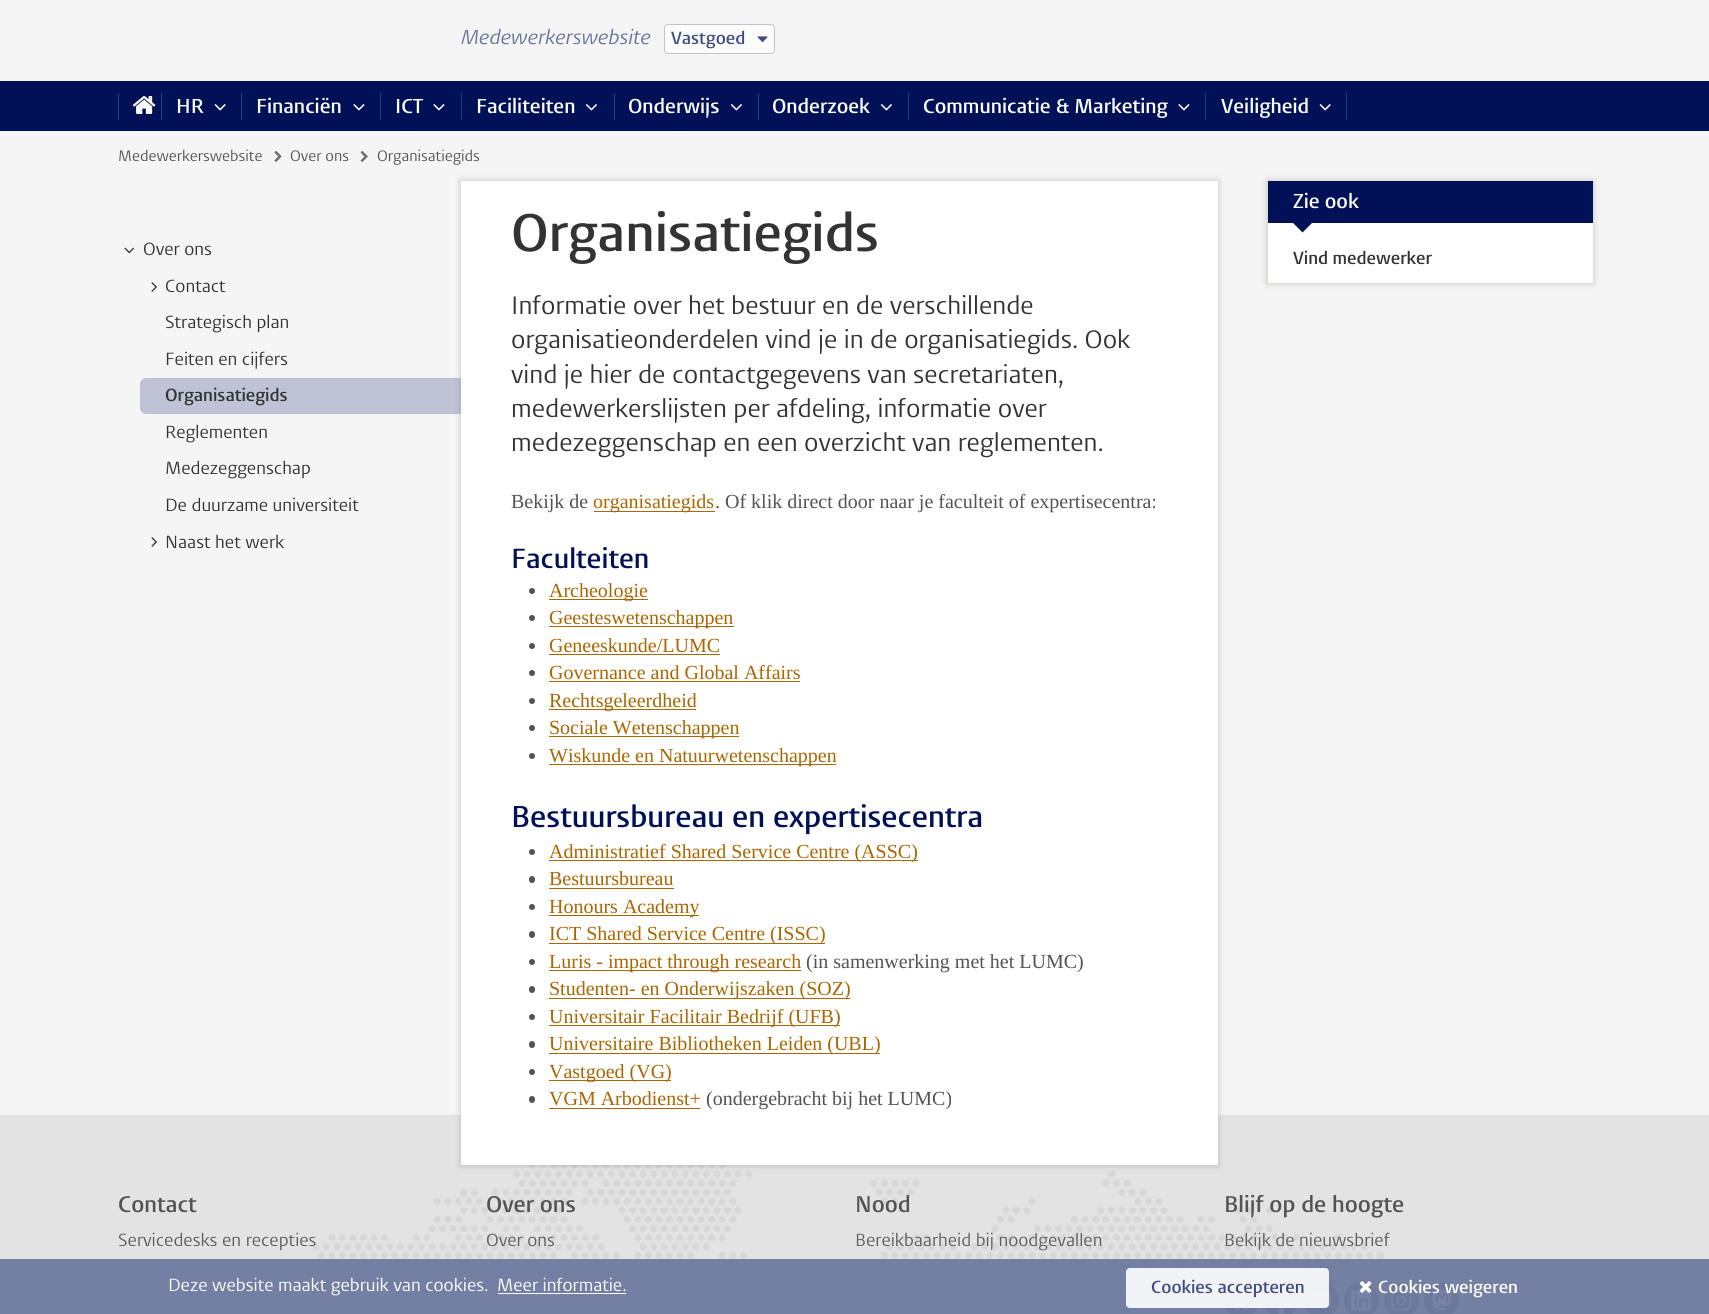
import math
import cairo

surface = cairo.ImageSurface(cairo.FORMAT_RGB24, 1709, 1314)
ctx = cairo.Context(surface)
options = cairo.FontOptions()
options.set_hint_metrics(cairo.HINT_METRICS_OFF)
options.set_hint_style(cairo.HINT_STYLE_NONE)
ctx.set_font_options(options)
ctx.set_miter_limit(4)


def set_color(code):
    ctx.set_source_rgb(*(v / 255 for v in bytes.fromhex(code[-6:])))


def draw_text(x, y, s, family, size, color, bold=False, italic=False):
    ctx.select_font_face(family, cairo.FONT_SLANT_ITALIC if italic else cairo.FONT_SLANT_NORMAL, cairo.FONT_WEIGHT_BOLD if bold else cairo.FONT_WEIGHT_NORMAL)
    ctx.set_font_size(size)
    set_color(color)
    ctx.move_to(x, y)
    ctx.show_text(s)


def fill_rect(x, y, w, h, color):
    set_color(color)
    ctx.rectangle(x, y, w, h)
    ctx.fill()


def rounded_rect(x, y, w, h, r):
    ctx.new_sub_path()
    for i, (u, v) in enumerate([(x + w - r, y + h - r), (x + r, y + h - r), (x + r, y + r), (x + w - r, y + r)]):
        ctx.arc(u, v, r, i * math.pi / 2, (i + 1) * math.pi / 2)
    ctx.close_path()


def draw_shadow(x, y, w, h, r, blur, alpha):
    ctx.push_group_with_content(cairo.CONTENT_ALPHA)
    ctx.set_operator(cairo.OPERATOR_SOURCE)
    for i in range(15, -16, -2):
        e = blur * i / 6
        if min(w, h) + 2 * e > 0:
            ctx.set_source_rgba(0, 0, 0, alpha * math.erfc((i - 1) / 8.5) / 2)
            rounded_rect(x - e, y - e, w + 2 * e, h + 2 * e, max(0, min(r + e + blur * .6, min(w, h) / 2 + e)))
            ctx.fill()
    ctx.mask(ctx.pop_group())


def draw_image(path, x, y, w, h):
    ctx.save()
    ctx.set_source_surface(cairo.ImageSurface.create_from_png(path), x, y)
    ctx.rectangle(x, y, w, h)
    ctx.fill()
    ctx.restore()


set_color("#f5f5f5")
ctx.paint()
draw_text(461, 44, "Medewerkerswebsite", "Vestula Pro", 20, "#68769c", italic=True)
set_color("#fcfcfc")
rounded_rect(664.5, 24.5, 110, 29, 3.5)
ctx.fill_preserve()
set_color("#bfc3d5")
ctx.set_line_width(1)
ctx.stroke()
draw_text(671, 44, "Vastgoed", "Vestula Pro SemiBold", 17.5, "#404d82")
draw_image("assets/img1.png", 757, 36, 11, 6)
fill_rect(0, 81, 1709, 50, "#001158")
fill_rect(118, 93, 1, 27, "#253b85")
draw_image("assets/img2.png", 132, 96, 24, 18)
fill_rect(161, 93, 1, 27, "#253b85")
draw_text(176, 113, "HR", "Vestula Pro SemiBold", 20, "#ffffff")
draw_image("assets/img3.png", 214, 104, 12, 7)
fill_rect(241, 93, 1, 27, "#253b85")
draw_text(256, 113, "Financiën", "Vestula Pro SemiBold", 20, "#ffffff")
draw_image("assets/img4.png", 353, 104, 12, 7)
fill_rect(380, 93, 1, 27, "#253b85")
draw_text(395, 113, "ICT", "Vestula Pro SemiBold", 20, "#ffffff")
draw_image("assets/img4.png", 433, 104, 12, 7)
fill_rect(461, 93, 1, 27, "#253b85")
draw_text(476, 113, "Faciliteiten", "Vestula Pro SemiBold", 20, "#ffffff")
draw_image("assets/img5.png", 585, 104, 12, 7)
fill_rect(614, 93, 1, 27, "#253b85")
draw_text(628, 113, "Onderwijs", "Vestula Pro SemiBold", 20, "#ffffff")
draw_image("assets/img5.png", 730, 104, 12, 7)
fill_rect(758, 93, 1, 27, "#253b85")
draw_text(772, 113, "Onderzoek", "Vestula Pro SemiBold", 20, "#ffffff")
draw_image("assets/img5.png", 880, 104, 12, 7)
fill_rect(908, 93, 1, 27, "#253b85")
draw_text(923, 113, "Communicatie & Marketing", "Vestula Pro SemiBold", 20, "#ffffff")
draw_image("assets/img4.png", 1178, 104, 12, 7)
fill_rect(1346, 93, 1, 27, "#253b85")
fill_rect(1205, 93, 1, 27, "#253b85")
draw_text(1221, 113, "Veiligheid", "Vestula Pro SemiBold", 20, "#ffffff")
draw_image("assets/img3.png", 1319, 104, 12, 7)
draw_text(118, 161, "Medewerkerswebsite", "Vestula Pro", 15, "#535353")
draw_image("assets/img6.png", 274, 150, 8, 12)
draw_text(290, 161, "Over ons", "Vestula Pro", 15, "#535353")
draw_image("assets/img7.png", 360, 150, 8, 12)
draw_text(377, 161, "Organisatiegids", "Vestula Pro", 15, "#535353")
draw_image("assets/img8.png", 124, 247, 11, 7)
draw_text(143, 255, "Over ons", "Vestula Pro", 17.5, "#333333")
draw_image("assets/img9.png", 151, 282, 6, 10)
draw_text(165, 292, "Contact", "Vestula Pro", 17.5, "#333333")
draw_text(165, 328, "Strategisch plan", "Vestula Pro", 17.5, "#333333")
draw_text(165, 365, "Feiten en cijfers", "Vestula Pro", 17.5, "#333333")
set_color("#bfc3d5")
ctx.new_path()
ctx.move_to(146, 378)
ctx.line_to(461, 378)
ctx.line_to(461, 414)
ctx.line_to(146, 414)
ctx.curve_to(142.5, 414, 140, 411.5, 140, 408)
ctx.line_to(140, 384)
ctx.curve_to(140, 380.5, 142.5, 378, 146, 378)
ctx.close_path()
ctx.fill()
draw_text(165, 401, "Organisatiegids", "Vestula Pro SemiBold", 17.5, "#333333")
draw_text(165, 438, "Reglementen", "Vestula Pro", 17.5, "#333333")
draw_text(165, 474, "Medezeggenschap", "Vestula Pro", 17.5, "#333333")
draw_text(165, 511, "De duurzame universiteit", "Vestula Pro", 17.5, "#333333")
draw_image("assets/img9.png", 151, 537, 6, 10)
draw_text(165, 548, "Naast het werk", "Vestula Pro", 17.5, "#333333")
fill_rect(0, 1115, 1709, 199, "#e3e3e3")
draw_image("assets/img10.png", 312, 1165, 1072, 149)
set_color("#786e64")
draw_shadow(460, 180, 759, 986, 0, 3, 0.3)
fill_rect(461, 181, 757, 984, "#ffffff")
draw_text(511, 251, "Organisatiegids", "Vestula Pro SemiBold", 52.5, "#333333")
draw_text(511, 314, "Informatie over het bestuur en de verschillende", "Vestula Pro", 25, "#333333")
draw_text(511, 348, "organisatieonderdelen vind je in de organisatiegids. Ook", "Vestula Pro", 25, "#333333")
draw_text(511, 383, "vind je hier de contactgegevens van secretariaten,", "Vestula Pro", 25, "#333333")
draw_text(511, 417, "medewerkerslijsten per afdeling, informatie over", "Vestula Pro", 25, "#333333")
draw_text(511, 451, "medezeggenschap en een overzicht van reglementen.", "Vestula Pro", 25, "#333333")
draw_text(511, 508, "Bekijk de", "Liberation Serif", 20, "#535353")
fill_rect(594, 511, 121, 1, "#aa6600")
draw_text(593, 508, "organisatiegids", "Liberation Serif", 20, "#aa6600")
draw_text(715, 508, ". Of klik direct door naar je faculteit of expertisecentra:", "Liberation Serif", 20, "#535353")
draw_text(511, 568, "Faculteiten", "Vestula Pro SemiBold", 27.5, "#001158")
set_color("#535353")
ctx.new_path()
ctx.arc(532, 591, 3, 0, 2 * math.pi)
ctx.fill()
fill_rect(549, 599, 99, 1, "#aa6600")
draw_text(549, 597, "Archeologie", "Liberation Serif", 20, "#aa6600")
set_color("#535353")
ctx.new_path()
ctx.arc(532, 618, 3, 0, 2 * math.pi)
ctx.fill()
fill_rect(549, 626, 185, 1, "#aa6600")
draw_text(549, 624, "Geesteswetenschappen", "Liberation Serif", 20, "#aa6600")
set_color("#535353")
ctx.new_path()
ctx.arc(532, 646, 3, 0, 2 * math.pi)
ctx.fill()
draw_text(549, 652, "Geneeskunde/LUMC", "Liberation Serif", 20, "#aa6600")
fill_rect(549, 654, 171, 1, "#aa6600")
set_color("#535353")
ctx.new_path()
ctx.arc(532, 673, 3, 0, 2 * math.pi)
ctx.fill()
draw_text(549, 679, "Governance and Global Affairs", "Liberation Serif", 20, "#aa6600")
fill_rect(549, 681, 251, 1, "#aa6600")
set_color("#535353")
ctx.new_path()
ctx.arc(532, 701, 3, 0, 2 * math.pi)
ctx.fill()
fill_rect(549, 709, 147, 1, "#aa6600")
draw_text(549, 707, "Rechtsgeleerdheid", "Liberation Serif", 20, "#aa6600")
set_color("#535353")
ctx.new_path()
ctx.arc(532, 728, 3, 0, 2 * math.pi)
ctx.fill()
fill_rect(549, 736, 190, 1, "#aa6600")
draw_text(549, 734, "Sociale Wetenschappen", "Liberation Serif", 20, "#aa6600")
set_color("#535353")
ctx.new_path()
ctx.arc(532, 756, 3, 0, 2 * math.pi)
ctx.fill()
fill_rect(549, 764, 287, 1, "#aa6600")
draw_text(549, 762, "Wiskunde en Natuurwetenschappen", "Liberation Serif", 20, "#aa6600")
draw_text(511, 827, "Bestuursbureau en expertisecentra", "Vestula Pro SemiBold", 30, "#001158")
set_color("#535353")
ctx.new_path()
ctx.arc(532, 852, 3, 0, 2 * math.pi)
ctx.fill()
fill_rect(549, 860, 369, 1, "#aa6600")
draw_text(549, 858, "Administratief Shared Service Centre (ASSC)", "Liberation Serif", 20, "#aa6600")
set_color("#535353")
rounded_rect(529, 876, 6, 7, 3)
ctx.fill()
draw_text(549, 885, "Bestuursbureau", "Liberation Serif", 20, "#aa6600")
fill_rect(549, 888, 125, 1, "#aa6600")
set_color("#535353")
ctx.new_path()
ctx.arc(532, 907, 3, 0, 2 * math.pi)
ctx.fill()
fill_rect(549, 915, 150, 1, "#aa6600")
draw_text(549, 913, "Honours Academy", "Liberation Serif", 20, "#aa6600")
set_color("#535353")
rounded_rect(529, 931, 6, 7, 3)
ctx.fill()
fill_rect(549, 943, 276, 1, "#aa6600")
draw_text(549, 940, "ICT Shared Service Centre (ISSC)", "Liberation Serif", 20, "#aa6600")
set_color("#535353")
ctx.new_path()
ctx.arc(532, 962, 3, 0, 2 * math.pi)
ctx.fill()
fill_rect(549, 970, 252, 1, "#aa6600")
draw_text(549, 968, "Luris - impact through research", "Liberation Serif", 20, "#aa6600")
draw_text(806, 968, "(in samenwerking met het LUMC)", "Liberation Serif", 20, "#535353")
rounded_rect(529, 986, 6, 7, 3)
ctx.fill()
fill_rect(549, 998, 301, 1, "#aa6600")
draw_text(549, 995, "Studenten- en Onderwijszaken (SOZ)", "Liberation Serif", 20, "#aa6600")
set_color("#535353")
ctx.new_path()
ctx.arc(532, 1017, 3, 0, 2 * math.pi)
ctx.fill()
fill_rect(549, 1025, 291, 1, "#aa6600")
draw_text(549, 1023, "Universitair Facilitair Bedrijf (UFB)", "Liberation Serif", 20, "#aa6600")
set_color("#535353")
rounded_rect(529, 1041, 6, 7, 3)
ctx.fill()
fill_rect(549, 1053, 331, 1, "#aa6600")
draw_text(549, 1050, "Universitaire Bibliotheken Leiden (UBL)", "Liberation Serif", 20, "#aa6600")
set_color("#535353")
ctx.new_path()
ctx.arc(532, 1072, 3, 0, 2 * math.pi)
ctx.fill()
fill_rect(549, 1080, 122, 1, "#aa6600")
draw_text(549, 1078, "Vastgoed (VG)", "Liberation Serif", 20, "#aa6600")
set_color("#535353")
rounded_rect(529, 1096, 6, 7, 3)
ctx.fill()
draw_text(549, 1105, "VGM Arbodienst+", "Liberation Serif", 20, "#aa6600")
fill_rect(549, 1108, 151, 1, "#aa6600")
draw_text(706, 1105, "(ondergebracht bij het LUMC)", "Liberation Serif", 20, "#535353")
set_color("#786e64")
draw_shadow(1266, 180, 328, 104, 0, 3, 0.3)
fill_rect(1268, 223, 325, 60, "#ffffff")
fill_rect(1268, 181, 325, 42, "#001158")
draw_text(1293, 208, "Zie ook", "Vestula Pro SemiBold", 20, "#ffffff")
set_color("#001158")
ctx.new_path()
ctx.move_to(1292.5, 222.5)
ctx.line_to(1312.5, 222.5)
ctx.line_to(1302.5, 232.5)
ctx.close_path()
ctx.fill()
draw_text(1293, 264, "Vind medewerker", "Vestula Pro SemiBold", 17.5, "#333333")
draw_text(118, 1212, "Contact", "Vestula Pro SemiBold", 22.5, "#535353")
draw_text(118, 1246, "Servicedesks en recepties", "Vestula Pro", 17.5, "#5e5e5e")
draw_text(486, 1212, "Over ons", "Vestula Pro SemiBold", 22.5, "#535353")
draw_text(486, 1246, "Over ons", "Vestula Pro", 17.5, "#5e5e5e")
draw_text(855, 1212, "Nood", "Vestula Pro SemiBold", 22.5, "#535353")
draw_text(855, 1246, "Bereikbaarheid bij noodgevallen", "Vestula Pro", 17.5, "#5e5e5e")
draw_text(1224, 1212, "Blijf op de hoogte", "Vestula Pro SemiBold", 22.5, "#535353")
draw_text(1224, 1246, "Bekijk de nieuwsbrief", "Vestula Pro", 17.5, "#5e5e5e")
set_color("#9a9a9a")
ctx.new_path()
ctx.arc(1241.5, 1300.5, 17.5, 0, 2 * math.pi)
ctx.fill()
draw_image("assets/img11.png", 1230, 1290, 23, 21)
set_color("#ffffff")
ctx.arc(1281.5, 1300.5, 17.5, 0, 2 * math.pi)
ctx.fill()
draw_image("assets/img12.png", 1263, 1282, 36, 32)
set_color("#9a9a9a")
ctx.arc(1321.5, 1300.5, 17.5, 0, 2 * math.pi)
ctx.fill()
draw_image("assets/img13.png", 1310, 1292, 22, 16)
ctx.arc(1361.5, 1300.5, 17.5, 0, 2 * math.pi)
ctx.fill()
draw_image("assets/img14.png", 1351, 1290, 21, 21)
ctx.arc(1401.5, 1300.5, 17.5, 0, 2 * math.pi)
ctx.fill()
draw_image("assets/img15.png", 1391, 1290, 21, 21)
ctx.arc(1441.5, 1300.5, 17.5, 0, 2 * math.pi)
ctx.fill()
draw_image("assets/img16.png", 1432, 1290, 20, 21)
ctx.set_source_rgba(0.408, 0.463, 0.612, 0.9)
ctx.rectangle(0, 1259, 1709, 55)
ctx.fill()
draw_text(168, 1291, "Deze website maakt gebruik van cookies.", "Vestula Pro", 17.5, "#ffffff")
draw_text(497, 1291, "Meer informatie.", "Vestula Pro", 17.5, "#ffffff")
fill_rect(498, 1293, 128, 1, "#ffffff")
ctx.set_source_rgba(1, 1, 1, 0.9)
rounded_rect(1126, 1268, 203, 40, 4)
ctx.fill()
draw_text(1151, 1293, "Cookies accepteren", "Vestula Pro SemiBold", 17.5, "#404d82")
draw_image("assets/img17.png", 1359, 1281, 13, 12)
draw_text(1378, 1293, "Cookies weigeren", "Vestula Pro SemiBold", 17.5, "#ffffff")
surface.write_to_png("output.png")
